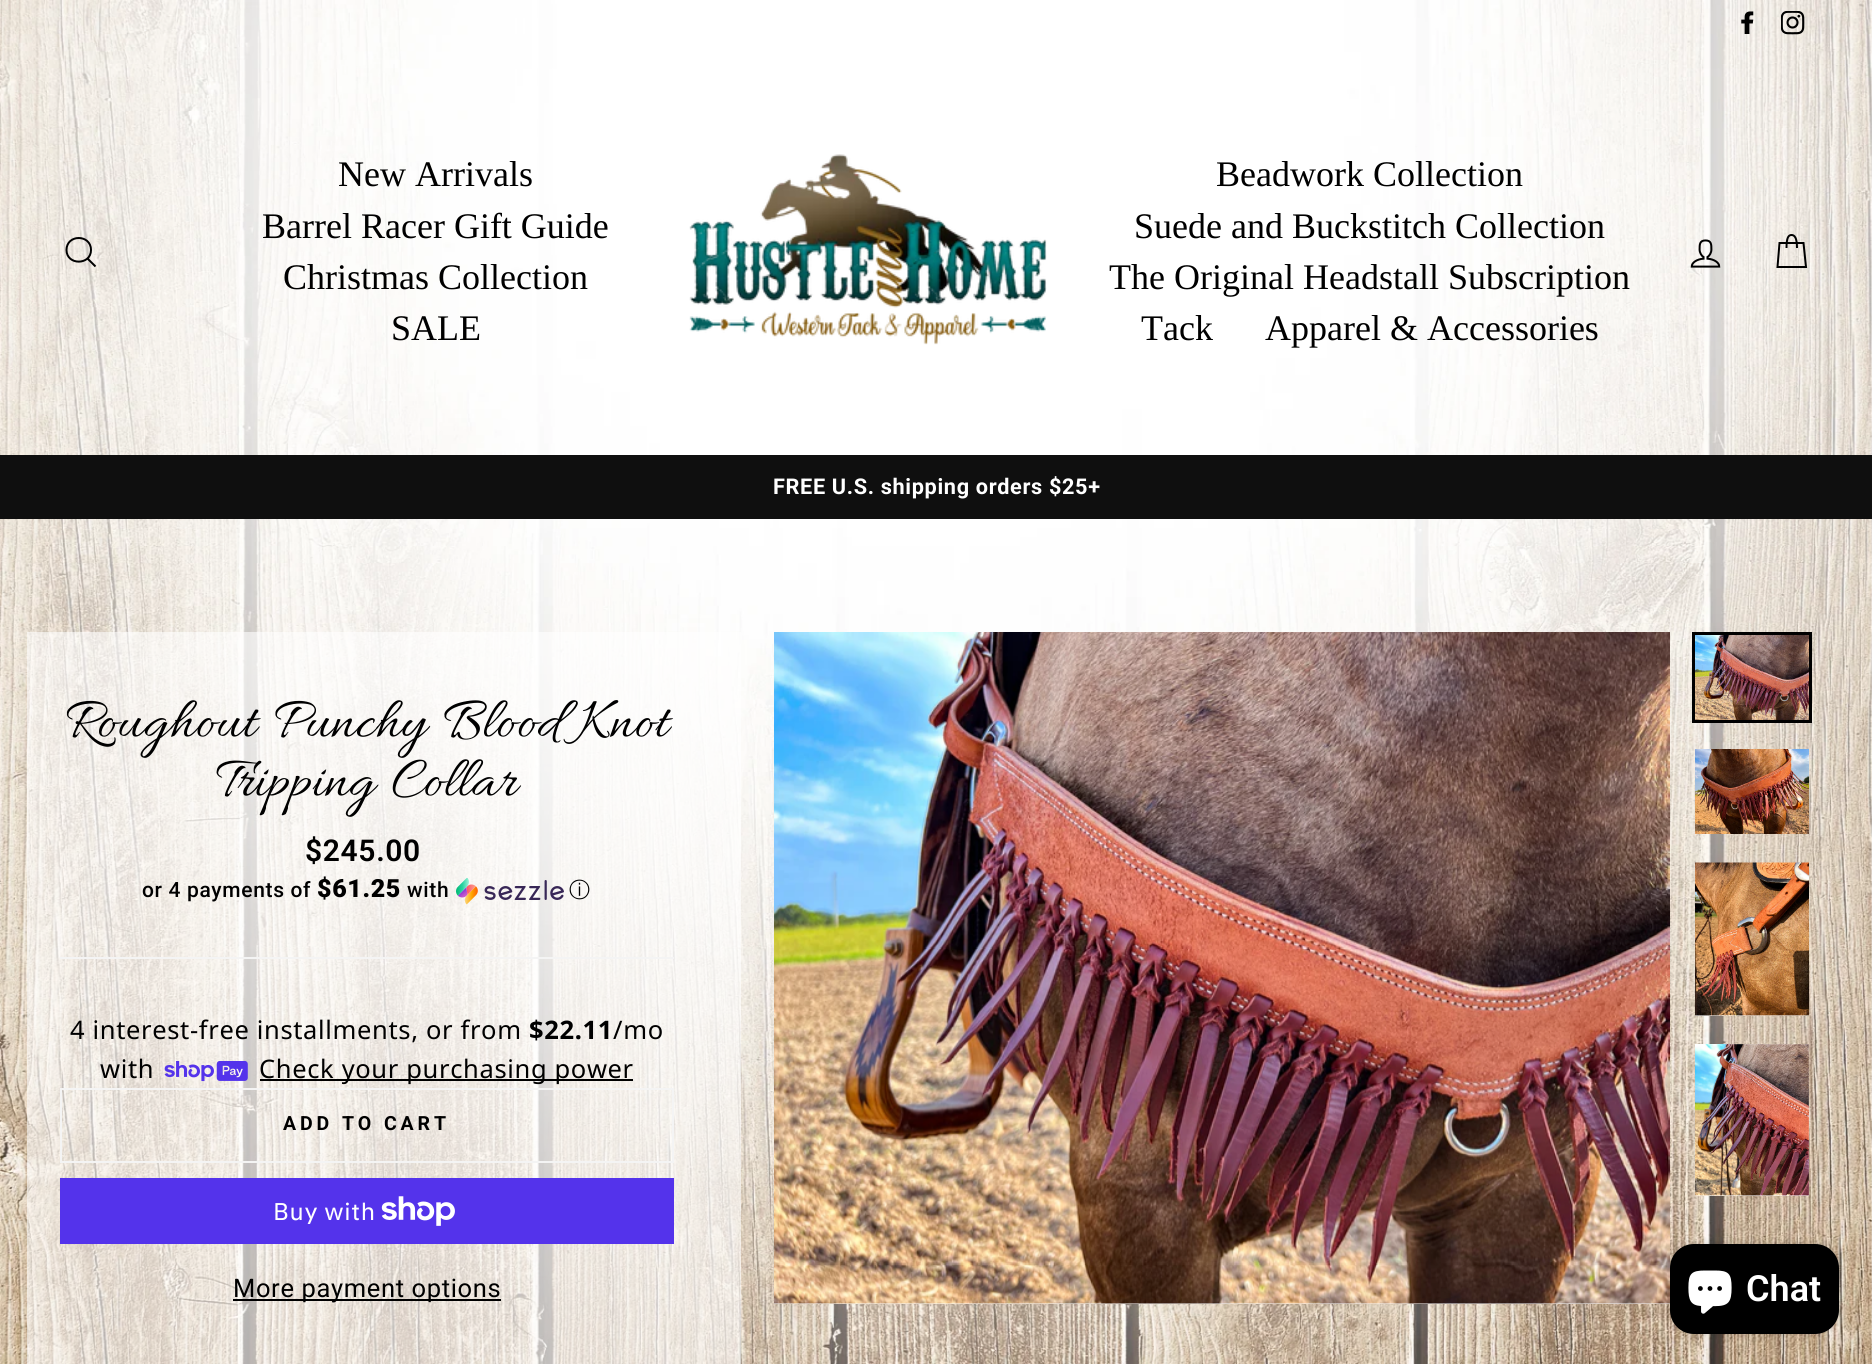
import math
import cairo

surface = cairo.ImageSurface(cairo.FORMAT_RGB24, 1872, 1364)
ctx = cairo.Context(surface)
options = cairo.FontOptions()
options.set_hint_metrics(cairo.HINT_METRICS_OFF)
options.set_hint_style(cairo.HINT_STYLE_NONE)
ctx.set_font_options(options)
ctx.set_miter_limit(4)


def set_color(code):
    ctx.set_source_rgb(*(v / 255 for v in bytes.fromhex(code[-6:])))


def draw_text(x, y, s, family, size, color, bold=False, italic=False):
    ctx.select_font_face(family, cairo.FONT_SLANT_ITALIC if italic else cairo.FONT_SLANT_NORMAL, cairo.FONT_WEIGHT_BOLD if bold else cairo.FONT_WEIGHT_NORMAL)
    ctx.set_font_size(size)
    set_color(color)
    ctx.move_to(x, y)
    ctx.show_text(s)


def draw_spaced(x, y, s, letter, word):
    ctx.move_to(x, y)
    for ch in s:
        ctx.show_text(ch)
        ctx.rel_move_to(letter + word * (ch == ' '), 0)


def fill_rect(x, y, w, h, color):
    set_color(color)
    ctx.rectangle(x, y, w, h)
    ctx.fill()


def rounded_rect(x, y, w, h, r):
    ctx.new_sub_path()
    for i, (u, v) in enumerate([(x + w - r, y + h - r), (x + r, y + h - r), (x + r, y + r), (x + w - r, y + r)]):
        ctx.arc(u, v, r, i * math.pi / 2, (i + 1) * math.pi / 2)
    ctx.close_path()


def draw_shadow(x, y, w, h, r, blur, alpha):
    ctx.push_group_with_content(cairo.CONTENT_ALPHA)
    ctx.set_operator(cairo.OPERATOR_SOURCE)
    for i in range(15, -16, -2):
        e = blur * i / 6
        if min(w, h) + 2 * e > 0:
            ctx.set_source_rgba(0, 0, 0, alpha * math.erfc((i - 1) / 8.5) / 2)
            rounded_rect(x - e, y - e, w + 2 * e, h + 2 * e, max(0, min(r + e + blur * .6, min(w, h) / 2 + e)))
            ctx.fill()
    ctx.mask(ctx.pop_group())


def draw_image(path, x, y, w, h):
    ctx.save()
    ctx.set_source_surface(cairo.ImageSurface.create_from_png(path), x, y)
    ctx.rectangle(x, y, w, h)
    ctx.fill()
    ctx.restore()


set_color("#ffffff")
ctx.paint()
draw_image("assets/img1.png", 0, 0, 1872, 1364)
draw_image("assets/img2.png", 1741, 11, 13, 23)
draw_image("assets/img3.png", 1781, 11, 24, 24)
ctx.new_path()
ctx.move_to(91, 250)
ctx.curve_to(91, 265.5, 66.5, 265.5, 66.5, 250)
ctx.curve_to(66.5, 234, 91, 234, 91, 250)
ctx.close_path()
ctx.move_to(95.5, 266.5)
ctx.line_to(87.5, 258.5)
set_color("#000000")
ctx.stroke()
draw_text(338, 186, "New Arrivals", "Liberation Serif", 36, "#000000")
draw_text(262, 238, "Barrel Racer Gift Guide", "Liberation Serif", 36, "#000000")
draw_text(283, 289, "Christmas Collection", "Liberation Serif", 36, "#000000")
draw_text(391, 340, "SALE", "Liberation Serif", 36, "#000000")
draw_image("assets/img4.png", 689, 154, 358, 191)
draw_text(1216, 186, "Beadwork Collection", "Liberation Serif", 36, "#000000")
draw_text(1134, 238, "Suede and Buckstitch Collection", "Liberation Serif", 36, "#000000")
draw_text(1109, 289, "The Original Headstall Subscription", "Liberation Serif", 36, "#000000")
draw_text(1141, 340, "Tack", "Liberation Serif", 36, "#000000")
draw_text(1265, 340, "Apparel & Accessories", "Liberation Serif", 36, "#000000")
draw_image("assets/img5.png", 1690, 239, 31, 29)
ctx.new_path()
ctx.move_to(1786.5, 248)
ctx.curve_to(1786.5, 237.5, 1788.5, 235, 1791.5, 235)
ctx.curve_to(1794.5, 235, 1797, 237.5, 1797, 248)
ctx.move_to(1779.5, 243)
ctx.line_to(1803.5, 243)
ctx.line_to(1806, 267)
ctx.line_to(1777.5, 267)
ctx.close_path()
ctx.stroke()
fill_rect(0, 455, 1872, 64, "#0f0f0f")
ctx.select_font_face("Roboto", cairo.FONT_SLANT_NORMAL, cairo.FONT_WEIGHT_BOLD)
ctx.set_font_size(21.7)
set_color("#ffffff")
draw_spaced(773, 494, "FREE U.S. shipping orders $25+", 0.65, 0)
ctx.set_source_rgba(1, 1, 1, 0.6)
ctx.rectangle(27, 632, 714, 732)
ctx.fill()
ctx.select_font_face("Allura")
ctx.set_font_size(59.25)
set_color("#000000")
draw_spaced(65, 736, "Roughout Punchy Blood Knot", 0.05, 4.5)
draw_spaced(216, 795, "Tripping Collar", 0.05, 4.5)
ctx.select_font_face("Roboto SemiBold")
ctx.set_font_size(30)
draw_spaced(305, 861, "$245.00", 0.65, 0)
ctx.select_font_face("Roboto Medium")
ctx.set_font_size(21)
draw_spaced(142, 897, "or 4 payments of", 0.65, 0)
ctx.select_font_face("Roboto Black")
ctx.set_font_size(25)
draw_spaced(317, 897, "$61.25", 0.65, 0)
ctx.select_font_face("Roboto Medium")
ctx.set_font_size(21)
draw_spaced(407, 897, "with", 0.65, 0)
draw_image("assets/img6.png", 456, 878, 108, 27)
ctx.select_font_face("WenQuanYi Zen Hei Medium")
draw_spaced(569, 897, "ⓘ", 0.65, 0)
fill_rect(60, 957, 614, 2, "#f4f4f4")
ctx.select_font_face("Noto Sans")
ctx.set_font_size(25.5)
set_color("#000000")
draw_spaced(70, 1039, "4 interest-free installments, or from", 0.65, 0)
ctx.select_font_face("Noto Sans", cairo.FONT_SLANT_NORMAL, cairo.FONT_WEIGHT_BOLD)
draw_spaced(529, 1039, "$22.11", 0.65, 0)
ctx.select_font_face("Noto Sans")
draw_spaced(613, 1039, "/mo", 0.65, 0)
draw_spaced(100, 1078, "with", 0.65, 0)
draw_image("assets/img7.png", 164, 1061, 84, 21)
fill_rect(260, 1079, 373, 2, "#000000")
draw_spaced(259, 1078, "Check your purchasing power", 0.65, 0)
ctx.rectangle(61, 1089, 612, 73)
set_color("#f4f4f4")
ctx.stroke()
ctx.select_font_face("Roboto", cairo.FONT_SLANT_NORMAL, cairo.FONT_WEIGHT_BOLD)
ctx.set_font_size(19.5)
set_color("#000000")
draw_spaced(283, 1130, "ADD TO CART", 3.9, 0)
fill_rect(60, 1178, 614, 66, "#5433eb")
ctx.select_font_face("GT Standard")
ctx.set_font_size(24)
set_color("#ffffff")
draw_spaced(273, 1220, "Buy with", 0.65, 0)
draw_image("assets/img8.png", 381, 1196, 74, 30)
fill_rect(233, 1299, 268, 2, "#000000")
ctx.select_font_face("Roboto")
ctx.set_font_size(25.5)
draw_spaced(233, 1297, "More payment options", 0.65, 0)
fill_rect(774, 1303, 896, 1, "#f4f4f4")
draw_image("assets/img9.png", 774, 632, 896, 672)
ctx.rectangle(1693.5, 633.5, 117, 88)
set_color("#000000")
ctx.set_line_width(3)
ctx.stroke()
draw_image("assets/img10.png", 1695, 635, 114, 85)
draw_image("assets/img11.png", 1695, 749, 114, 85)
fill_rect(1695, 1015, 114, 1, "#ffffff")
draw_image("assets/img12.png", 1695, 862, 114, 154)
fill_rect(1695, 1044, 114, 152, "#ffffff")
draw_image("assets/img13.png", 1695, 1044, 114, 152)
set_color("#000000")
draw_shadow(1670, 1244, 169, 90, 24, 4, 0.15)
set_color("#000000")
rounded_rect(1670, 1244, 169, 90, 24)
ctx.fill()
draw_image("assets/img14.png", 1688, 1270, 44, 44)
draw_text(1746, 1301, "Chat", "Roboto SemiBold", 36, "#ffffff")
surface.write_to_png("output.png")
